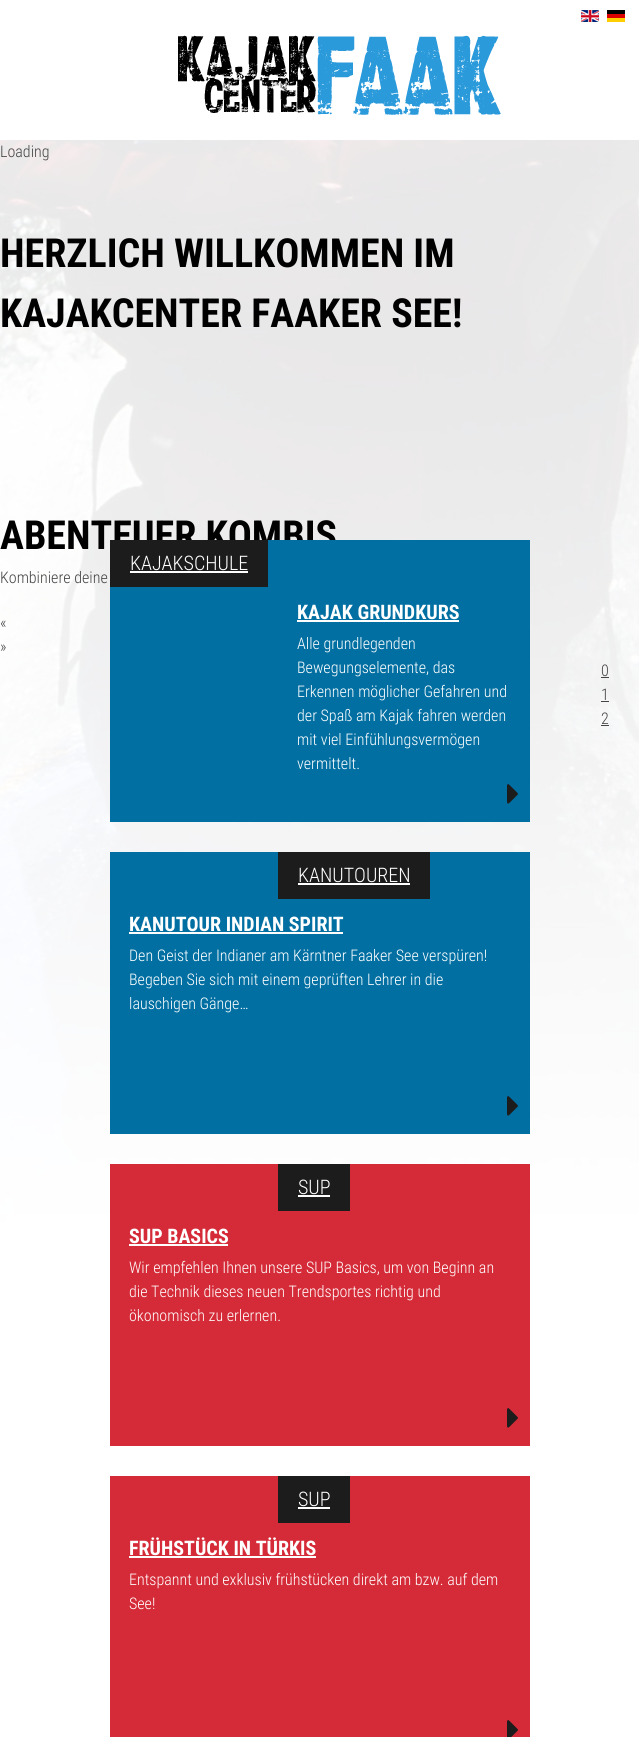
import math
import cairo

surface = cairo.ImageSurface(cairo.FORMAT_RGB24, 639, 1737)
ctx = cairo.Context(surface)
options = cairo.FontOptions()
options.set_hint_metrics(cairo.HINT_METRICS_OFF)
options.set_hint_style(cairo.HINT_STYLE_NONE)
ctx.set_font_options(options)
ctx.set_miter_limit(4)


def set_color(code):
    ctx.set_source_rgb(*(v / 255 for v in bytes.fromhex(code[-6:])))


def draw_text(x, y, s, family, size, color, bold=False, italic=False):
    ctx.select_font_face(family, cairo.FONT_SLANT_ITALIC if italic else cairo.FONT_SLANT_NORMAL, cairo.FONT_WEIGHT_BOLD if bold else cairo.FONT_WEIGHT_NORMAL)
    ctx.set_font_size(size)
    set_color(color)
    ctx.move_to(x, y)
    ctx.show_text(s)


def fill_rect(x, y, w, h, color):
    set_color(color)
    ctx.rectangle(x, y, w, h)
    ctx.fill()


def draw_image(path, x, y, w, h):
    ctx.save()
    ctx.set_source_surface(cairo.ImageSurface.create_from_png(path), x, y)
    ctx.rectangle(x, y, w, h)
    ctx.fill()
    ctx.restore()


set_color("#ffffff")
ctx.paint()
draw_image("assets/img1.png", 0, 140, 639, 1090)
draw_image("assets/img2.png", 581, 10, 18, 12)
draw_image("assets/img3.png", 607, 10, 18, 12)
draw_image("assets/img4.png", 178, 35, 323, 80)
ctx.set_source_rgba(1, 1, 1, 0.9)
ctx.rectangle(0, 140, 639, 1090)
ctx.fill()
draw_text(0, 157, "Loading", "Roboto Condensed Light", 16, "#444444")
draw_text(0, 267, "HERZLICH WILLKOMMEN IM", "Roboto Condensed", 40, "#000000", bold=True)
draw_text(0, 327, "KAJAKCENTER FAAKER SEE!", "Roboto Condensed", 40, "#000000", bold=True)
draw_text(0, 549, "ABENTEUER KOMBIS", "Roboto Condensed", 40, "#000000", bold=True)
draw_text(0, 583, "Kombiniere deine", "Roboto Condensed Light", 16, "#444444")
draw_text(0, 628, "«", "Roboto Condensed Light", 16, "#444444")
draw_text(0, 652, "»", "Roboto Condensed Light", 16, "#444444")
draw_text(601, 676, "0", "Roboto Condensed Light", 16, "#444444")
fill_rect(601, 677, 8, 1, "#444444")
draw_text(601, 700, "1", "Roboto Condensed Light", 16, "#444444")
fill_rect(601, 701, 8, 1, "#444444")
draw_text(601, 724, "2", "Roboto Condensed Light", 16, "#444444")
fill_rect(601, 725, 8, 1, "#444444")
fill_rect(110, 540, 420, 282, "#016fa2")
fill_rect(110, 540, 158, 47, "#1c1c1c")
draw_text(130, 570, "KAJAKSCHULE", "Roboto Condensed Light", 20, "#ffffff")
fill_rect(130, 571, 118, 2, "#ffffff")
draw_text(297, 619, "KAJAK GRUNDKURS", "Roboto Condensed", 20, "#ffffff", bold=True)
fill_rect(297, 620, 162, 2, "#ffffff")
draw_text(297, 649, "Alle grundlegenden", "Roboto Condensed Light", 16, "#ffffff")
draw_text(297, 673, "Bewegungselemente, das", "Roboto Condensed Light", 16, "#ffffff")
draw_text(297, 697, "Erkennen möglicher Gefahren und", "Roboto Condensed Light", 16, "#ffffff")
draw_text(297, 721, "der Spaß am Kajak fahren werden", "Roboto Condensed Light", 16, "#ffffff")
draw_text(297, 745, "mit viel Einfühlungsvermögen", "Roboto Condensed Light", 16, "#ffffff")
draw_text(297, 769, "vermittelt.", "Roboto Condensed Light", 16, "#ffffff")
draw_image("assets/img5.png", 507, 784, 11, 20)
fill_rect(110, 852, 420, 282, "#016fa2")
fill_rect(278, 852, 152, 47, "#1c1c1c")
draw_text(298, 882, "KANUTOUREN", "Roboto Condensed Light", 20, "#ffffff")
fill_rect(298, 883, 112, 2, "#ffffff")
draw_text(129, 931, "KANUTOUR INDIAN SPIRIT", "Roboto Condensed", 20, "#ffffff", bold=True)
fill_rect(129, 932, 214, 2, "#ffffff")
draw_text(129, 961, "Den Geist der Indianer am Kärntner Faaker See verspüren!", "Roboto Condensed Light", 16, "#ffffff")
draw_text(129, 985, "Begeben Sie sich mit einem geprüften Lehrer in die", "Roboto Condensed Light", 16, "#ffffff")
draw_text(129, 1009, "lauschigen Gänge…", "Roboto Condensed Light", 16, "#ffffff")
draw_image("assets/img5.png", 507, 1096, 11, 20)
fill_rect(110, 1164, 420, 282, "#d52b38")
fill_rect(278, 1164, 72, 47, "#1c1c1c")
draw_text(298, 1194, "SUP", "Roboto Condensed Light", 20, "#ffffff")
fill_rect(298, 1195, 32, 2, "#ffffff")
draw_text(129, 1243, "SUP BASICS", "Roboto Condensed", 20, "#ffffff", bold=True)
fill_rect(129, 1244, 99, 2, "#ffffff")
draw_text(129, 1273, "Wir empfehlen Ihnen unsere SUP Basics, um von Beginn an", "Roboto Condensed Light", 16, "#ffffff")
draw_text(129, 1297, "die Technik dieses neuen Trendsportes richtig und", "Roboto Condensed Light", 16, "#ffffff")
draw_text(129, 1321, "ökonomisch zu erlernen.", "Roboto Condensed Light", 16, "#ffffff")
draw_image("assets/img6.png", 507, 1408, 11, 20)
fill_rect(110, 1476, 420, 261, "#d52b38")
fill_rect(278, 1476, 72, 47, "#1c1c1c")
draw_text(298, 1506, "SUP", "Roboto Condensed Light", 20, "#ffffff")
fill_rect(298, 1507, 32, 2, "#ffffff")
draw_text(129, 1555, "FRÜHSTÜCK IN TÜRKIS", "Roboto Condensed", 20, "#ffffff", bold=True)
fill_rect(129, 1556, 187, 2, "#ffffff")
draw_text(129, 1585, "Entspannt und exklusiv frühstücken direkt am bzw. auf dem", "Roboto Condensed Light", 16, "#ffffff")
draw_text(129, 1609, "See!", "Roboto Condensed Light", 16, "#ffffff")
draw_image("assets/img7.png", 507, 1720, 11, 17)
surface.write_to_png("output.png")
